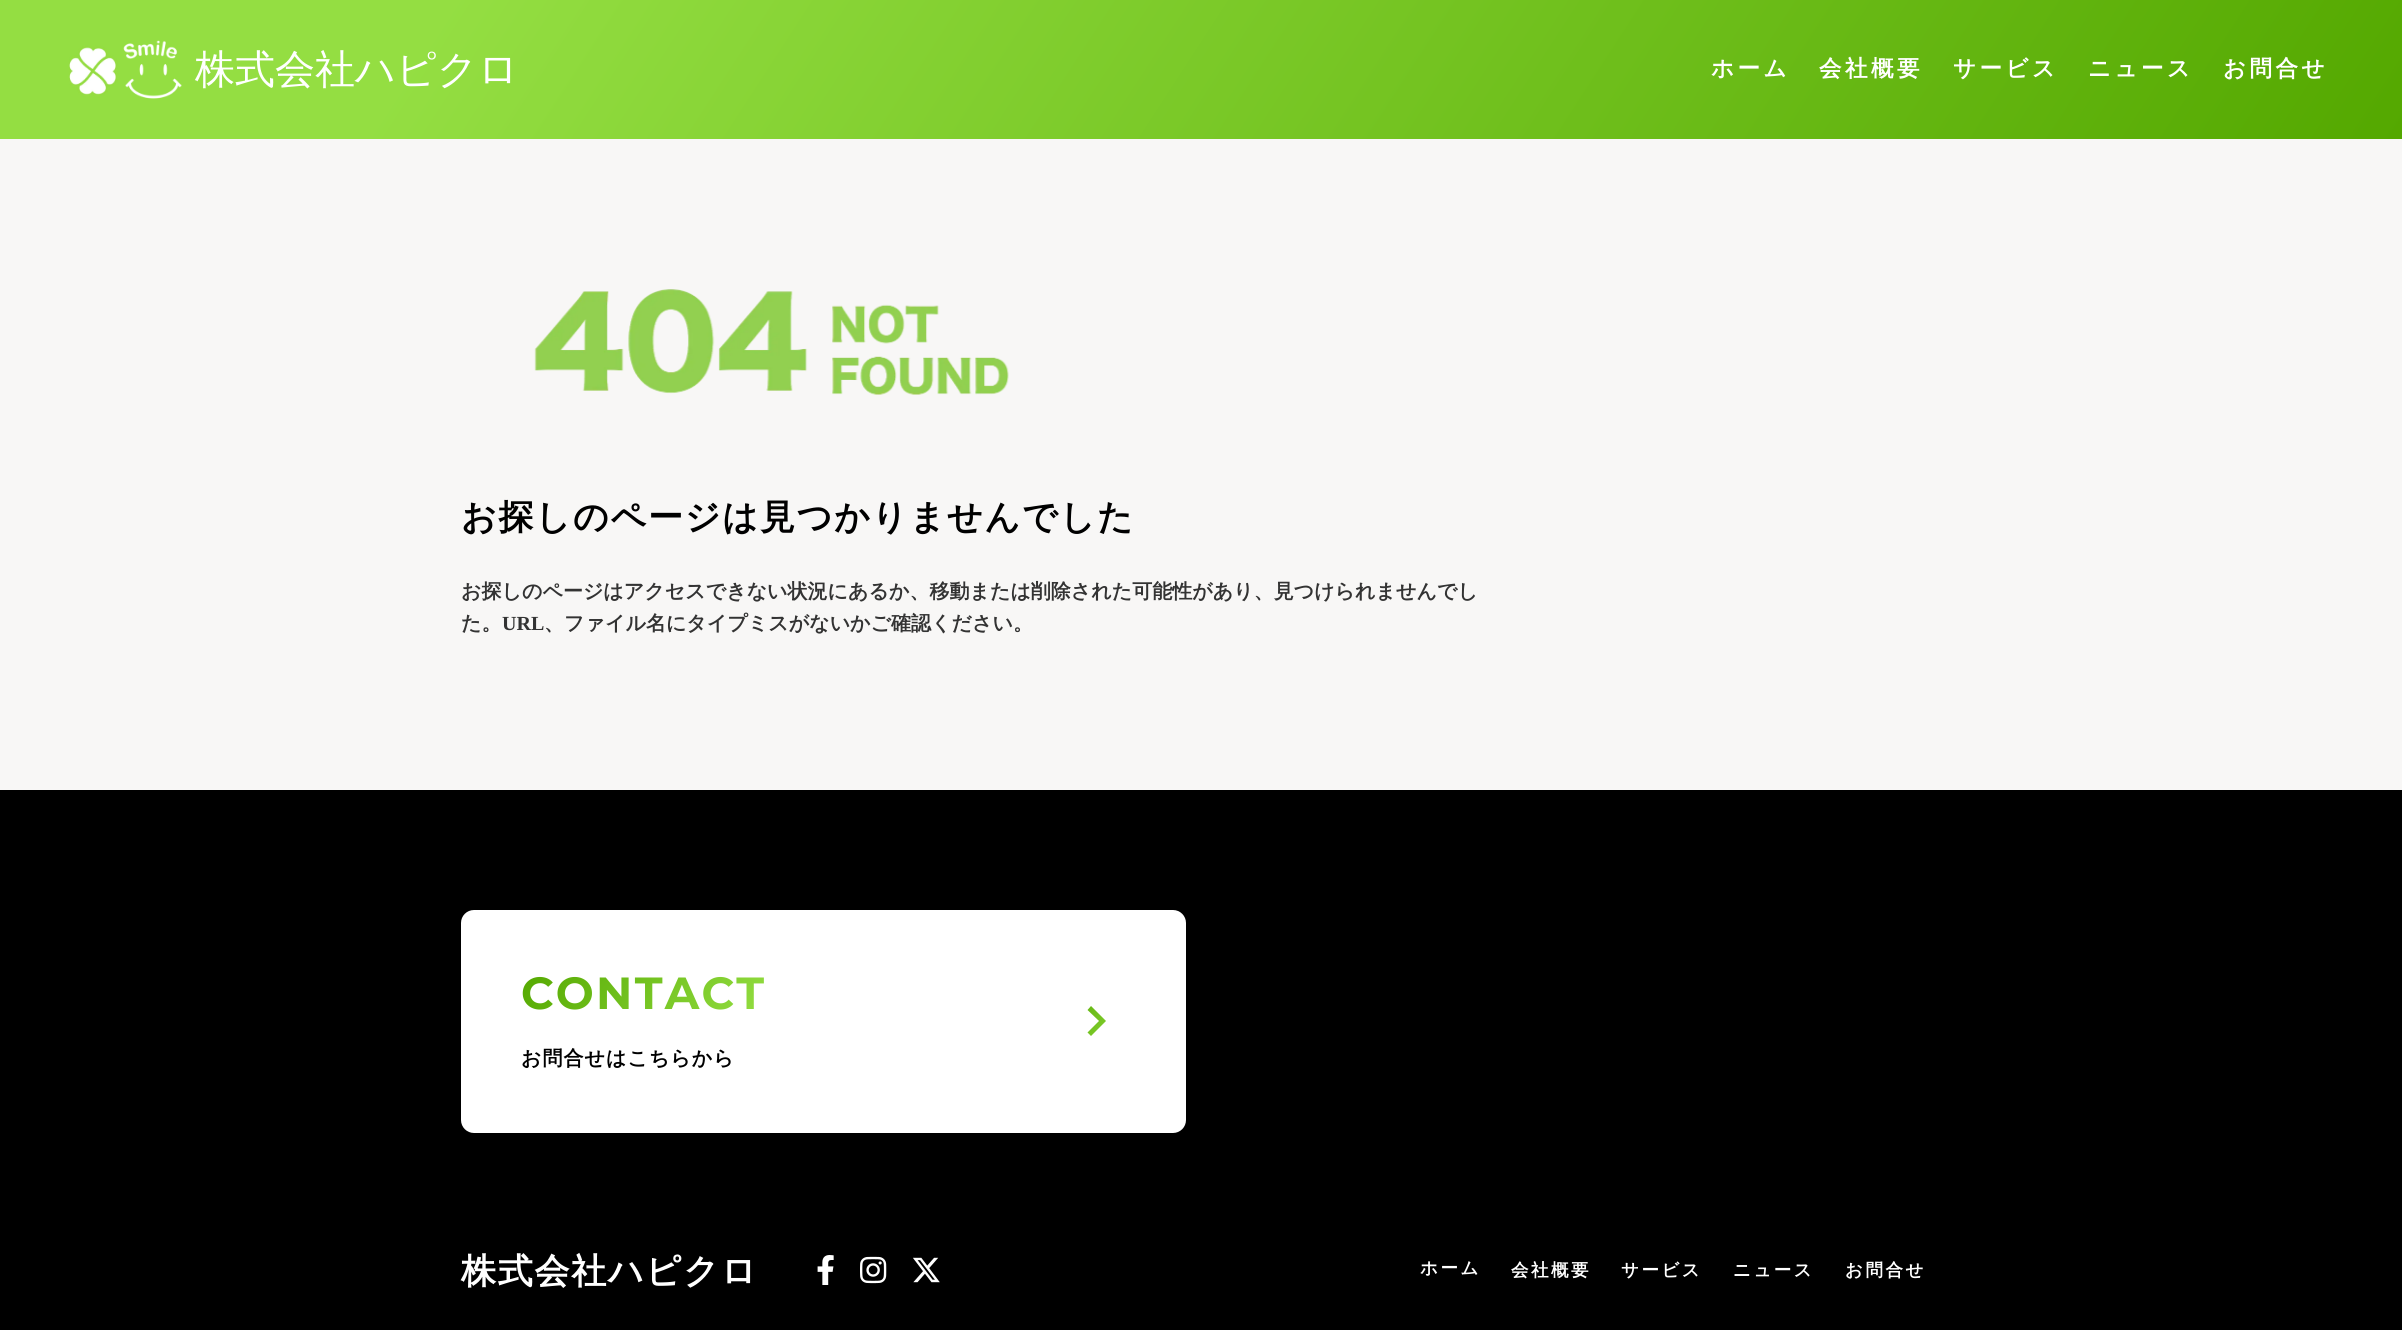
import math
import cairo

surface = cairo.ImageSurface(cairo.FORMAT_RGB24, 2402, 1330)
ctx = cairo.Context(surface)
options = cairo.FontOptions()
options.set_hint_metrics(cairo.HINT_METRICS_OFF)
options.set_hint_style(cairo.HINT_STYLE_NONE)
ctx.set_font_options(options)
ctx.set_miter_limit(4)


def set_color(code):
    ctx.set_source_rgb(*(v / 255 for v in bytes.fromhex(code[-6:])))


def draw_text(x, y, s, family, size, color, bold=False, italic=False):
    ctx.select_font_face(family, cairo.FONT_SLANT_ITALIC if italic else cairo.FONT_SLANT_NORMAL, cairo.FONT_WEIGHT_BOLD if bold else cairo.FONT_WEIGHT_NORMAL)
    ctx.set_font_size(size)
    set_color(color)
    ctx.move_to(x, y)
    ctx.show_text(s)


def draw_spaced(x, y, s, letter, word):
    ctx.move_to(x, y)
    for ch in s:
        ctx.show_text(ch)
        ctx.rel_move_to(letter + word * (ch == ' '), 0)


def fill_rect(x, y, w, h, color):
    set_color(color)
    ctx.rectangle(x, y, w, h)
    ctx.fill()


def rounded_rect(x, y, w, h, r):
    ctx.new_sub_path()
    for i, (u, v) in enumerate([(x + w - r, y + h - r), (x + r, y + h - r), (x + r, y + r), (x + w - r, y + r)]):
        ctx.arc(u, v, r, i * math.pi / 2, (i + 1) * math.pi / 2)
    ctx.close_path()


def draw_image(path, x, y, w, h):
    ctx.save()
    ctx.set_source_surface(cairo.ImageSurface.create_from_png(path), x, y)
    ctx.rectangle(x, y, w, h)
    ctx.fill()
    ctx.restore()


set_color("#f8f7f6")
ctx.paint()
gradient = cairo.LinearGradient(325, -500, 2078, 639)
gradient.add_color_stop_rgba(0, 0.58, 0.871, 0.259, 1)
gradient.add_color_stop_rgba(0.18, 0.58, 0.871, 0.259, 1)
gradient.add_color_stop_rgba(1, 0.329, 0.659, 0, 1)
ctx.set_source(gradient)
ctx.rectangle(0, 0, 2402, 139)
ctx.fill()
draw_image("assets/img1.png", 69, 40, 113, 59)
draw_text(195, 83, "株式会社ハピクロ", "WenQuanYi Zen Hei Medium", 40, "#ffffff")
ctx.select_font_face("WenQuanYi Zen Hei", cairo.FONT_SLANT_NORMAL, cairo.FONT_WEIGHT_BOLD)
ctx.set_font_size(22.5)
draw_spaced(1711, 76, "ホーム", 3.5, 0)
draw_spaced(1819, 76, "会社概要", 3.5, 0)
draw_spaced(1953, 76, "サービス", 3.5, 0)
draw_spaced(2088, 76, "ニュース", 3.5, 0)
draw_spaced(2223, 76, "お問合せ", 3.5, 0)
draw_image("assets/img2.png", 534, 289, 475, 106)
ctx.set_font_size(35)
set_color("#000000")
draw_spaced(461, 529, "お探しのページは見つかりませんでした", 1.75, 0)
draw_text(461, 598, "お探しのページはアクセスできない状況にあるか、移動または削除された可能性があり、見つけられませんでし", "WenQuanYi Zen Hei", 20, "#333333", bold=True)
draw_text(461, 630, "た。", "WenQuanYi Zen Hei", 20, "#333333", bold=True)
draw_text(502, 630, "URL", "Liberation Serif", 20, "#333333", bold=True)
draw_text(544, 630, "、ファイル名にタイプミスがないかご確認ください。", "WenQuanYi Zen Hei", 20, "#333333", bold=True)
fill_rect(0, 790, 2402, 540, "#000000")
set_color("#ffffff")
rounded_rect(461, 910, 725, 223, 13)
ctx.fill()
ctx.select_font_face("Montserrat", cairo.FONT_SLANT_NORMAL, cairo.FONT_WEIGHT_BOLD)
ctx.set_font_size(45)
gradient = cairo.LinearGradient(733, 1060, 555, 925)
gradient.add_color_stop_rgba(0, 0.58, 0.871, 0.259, 1)
gradient.add_color_stop_rgba(1, 0.329, 0.659, 0, 1)
ctx.set_source(gradient)
draw_spaced(521, 1009, "CONTACT", 2.25, 0)
ctx.select_font_face("WenQuanYi Zen Hei", cairo.FONT_SLANT_NORMAL, cairo.FONT_WEIGHT_BOLD)
ctx.set_font_size(20)
set_color("#000000")
draw_spaced(521, 1065, "お問合せはこちらから", 1, 0)
gradient = cairo.LinearGradient(1130, 1047, 1063, 996)
gradient.add_color_stop_rgba(0, 0.58, 0.871, 0.259, 1)
gradient.add_color_stop_rgba(1, 0.329, 0.659, 0, 1)
ctx.set_source(gradient)
ctx.new_path()
ctx.move_to(1087.5, 1032.5)
ctx.line_to(1099, 1021)
ctx.line_to(1087.5, 1010)
ctx.line_to(1091, 1006)
ctx.line_to(1106, 1021)
ctx.line_to(1091, 1036)
ctx.close_path()
ctx.fill()
ctx.set_font_size(35)
set_color("#ffffff")
draw_spaced(461, 1283, "株式会社ハピクロ", 1.75, 0)
draw_image("assets/img3.png", 817, 1255, 17, 30)
draw_image("assets/img4.png", 860, 1256, 27, 28)
draw_image("assets/img5.png", 913, 1257, 27, 26)
ctx.set_font_size(17.5)
draw_spaced(1420, 1274, "ホーム", 2.5, 0)
draw_spaced(1511, 1276, "会社概要", 2.5, 0)
draw_spaced(1621, 1276, "サービス", 2.5, 0)
draw_spaced(1733, 1276, "ニュース", 2.5, 0)
draw_spaced(1845, 1276, "お問合せ", 2.5, 0)
surface.write_to_png("output.png")
